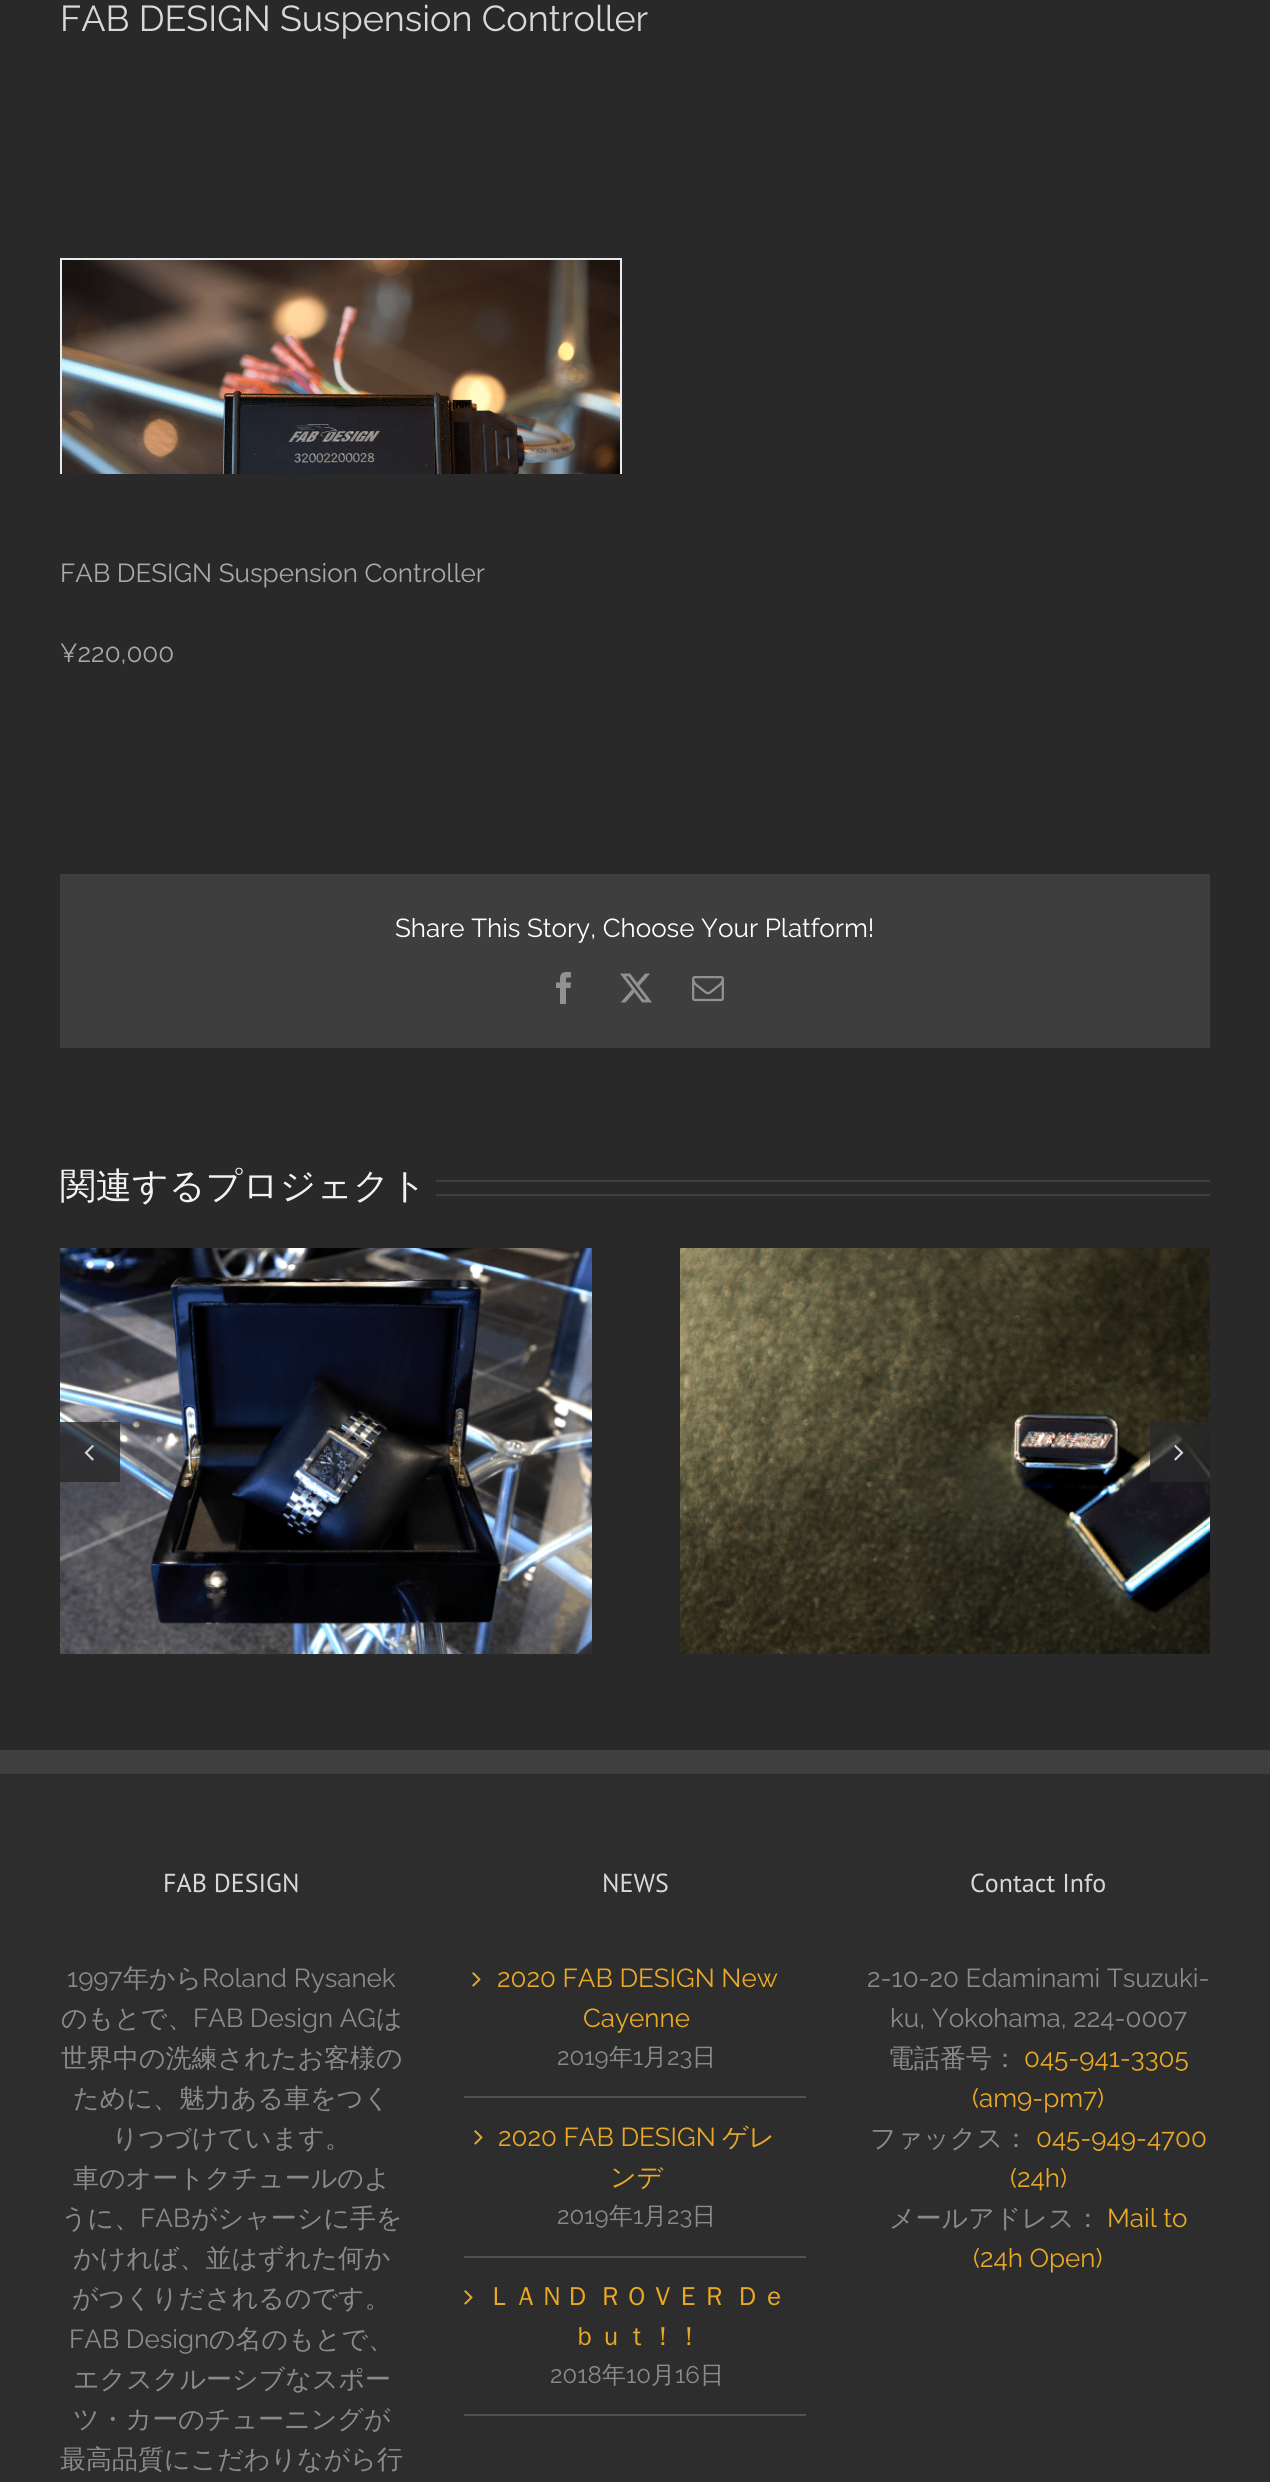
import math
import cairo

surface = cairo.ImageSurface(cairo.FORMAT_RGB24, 1270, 2482)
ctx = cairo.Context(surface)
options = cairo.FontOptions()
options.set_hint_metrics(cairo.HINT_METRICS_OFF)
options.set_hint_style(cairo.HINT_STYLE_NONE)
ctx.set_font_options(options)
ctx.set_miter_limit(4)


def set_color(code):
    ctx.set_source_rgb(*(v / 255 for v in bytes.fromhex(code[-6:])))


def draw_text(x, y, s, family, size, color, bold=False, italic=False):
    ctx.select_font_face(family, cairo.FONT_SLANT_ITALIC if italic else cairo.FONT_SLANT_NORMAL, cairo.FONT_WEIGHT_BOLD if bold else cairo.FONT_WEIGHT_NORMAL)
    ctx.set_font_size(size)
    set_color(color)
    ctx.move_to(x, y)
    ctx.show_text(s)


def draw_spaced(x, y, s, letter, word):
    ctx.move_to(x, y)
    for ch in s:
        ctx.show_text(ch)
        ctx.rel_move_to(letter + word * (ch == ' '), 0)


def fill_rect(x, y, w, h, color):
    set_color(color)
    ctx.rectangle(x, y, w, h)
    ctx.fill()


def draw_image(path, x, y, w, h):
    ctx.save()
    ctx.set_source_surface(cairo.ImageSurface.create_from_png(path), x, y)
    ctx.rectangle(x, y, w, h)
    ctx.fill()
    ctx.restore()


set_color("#29292a")
ctx.paint()
draw_text(60, 31, "FAB DESIGN Suspension Controller", "Raleway", 36, "#d8d8d8")
draw_text(60, 582, "FAB DESIGN Suspension Controller", "Raleway", 26, "#aaa9a9")
ctx.save()
ctx.rectangle(60, 242, 1150, 232)
ctx.clip()
ctx.rectangle(61, 259, 560, 308)
set_color("#e9eaee")
ctx.stroke()
ctx.restore()
draw_image("assets/img1.png", 62, 260, 558, 214)
draw_text(60, 662, "¥220,000", "Raleway", 26, "#aaa9a9")
fill_rect(60, 874, 1150, 174, "#3e3e3e")
draw_text(395, 937, "Share This Story, Choose Your Platform!", "Raleway", 26, "#ffffff")
draw_image("assets/img2.png", 556, 972, 15, 32)
draw_image("assets/img3.png", 620, 973, 32, 30)
draw_image("assets/img4.png", 692, 976, 32, 26)
draw_text(60, 1198, "関連するプロジェクト", "WenQuanYi Zen Hei Medium", 36, "#f2f2f2")
fill_rect(436, 1180, 774, 2, "#3e3e3e")
fill_rect(436, 1194, 774, 2, "#3e3e3e")
draw_image("assets/img5.png", 60, 1248, 532, 406)
draw_image("assets/img6.png", 680, 1248, 530, 406)
ctx.set_source_rgba(0.161, 0.161, 0.165, 0.8)
ctx.rectangle(60, 1422, 60, 60)
ctx.fill()
draw_image("assets/img7.png", 84, 1445, 10, 16)
ctx.rectangle(1150, 1422, 60, 60)
ctx.fill()
draw_image("assets/img8.png", 1174, 1445, 10, 16)
fill_rect(0, 1774, 1270, 708, "#2d2d2d")
fill_rect(0, 1750, 1270, 24, "#403f3f")
draw_text(163, 1892, "FAB DESIGN", "PT Sans", 26, "#d8d8d8")
draw_text(67, 1987, "1997", "Raleway", 26, "#8c8989")
draw_text(123, 1987, "年から", "WenQuanYi Zen Hei Medium", 26, "#8c8989")
draw_text(202, 1987, "Roland Rysanek", "Raleway", 26, "#8c8989")
draw_text(61, 2027, "のもとで、", "WenQuanYi Zen Hei Medium", 26, "#8c8989")
draw_text(193, 2027, "FAB Design AG", "Raleway", 26, "#8c8989")
draw_text(376, 2027, "は", "WenQuanYi Zen Hei Medium", 26, "#8c8989")
draw_text(61, 2067, "世界中の洗練されたお客様の", "WenQuanYi Zen Hei Medium", 26, "#8c8989")
draw_text(73, 2107, "ために、魅力ある車をつく", "WenQuanYi Zen Hei Medium", 26, "#8c8989")
draw_text(112, 2147, "りつづけています。", "WenQuanYi Zen Hei Medium", 26, "#8c8989")
draw_text(73, 2187, "車のオートクチュールのよ", "WenQuanYi Zen Hei Medium", 26, "#8c8989")
draw_text(61, 2227, "うに、", "WenQuanYi Zen Hei Medium", 26, "#8c8989")
draw_text(140, 2227, "FAB", "Raleway", 26, "#8c8989")
draw_text(191, 2227, "がシャーシに手を", "WenQuanYi Zen Hei Medium", 26, "#8c8989")
draw_text(73, 2267, "かければ、並はずれた何か", "WenQuanYi Zen Hei Medium", 26, "#8c8989")
draw_text(72, 2307, "がつくりだされるのです。", "WenQuanYi Zen Hei Medium", 26, "#8c8989")
draw_text(69, 2348, "FAB Design", "Raleway", 26, "#8c8989")
draw_text(209, 2348, "の名のもとで、", "WenQuanYi Zen Hei Medium", 26, "#8c8989")
draw_text(73, 2388, "エクスクルーシブなスポー", "WenQuanYi Zen Hei Medium", 26, "#8c8989")
draw_text(73, 2428, "ツ・カーのチューニングが", "WenQuanYi Zen Hei Medium", 26, "#8c8989")
draw_text(60, 2468, "最高品質にこだわりながら行", "WenQuanYi Zen Hei Medium", 26, "#8c8989")
draw_text(602, 1892, "NEWS", "PT Sans", 26, "#d8d8d8")
fill_rect(464, 2096, 342, 2, "#505152")
draw_image("assets/img9.png", 472, 1972, 9, 15)
draw_text(497, 1987, "2020 FAB DESIGN New", "Raleway", 26, "#e9a825")
draw_text(583, 2027, "Cayenne", "Raleway", 26, "#e9a825")
draw_text(557, 2065, "2019", "Raleway", 24, "#8c8989")
draw_text(609, 2065, "年", "WenQuanYi Zen Hei Medium", 24, "#8c8989")
draw_text(633, 2065, "1", "Raleway", 24, "#8c8989")
draw_text(643, 2065, "月", "WenQuanYi Zen Hei Medium", 24, "#8c8989")
draw_text(667, 2065, "23", "Raleway", 24, "#8c8989")
draw_text(692, 2065, "日", "WenQuanYi Zen Hei Medium", 24, "#8c8989")
fill_rect(464, 2256, 342, 2, "#505152")
draw_image("assets/img9.png", 474, 2130, 9, 15)
draw_text(498, 2146, "2020 FAB DESIGN", "Raleway", 26, "#e9a825")
draw_text(722, 2146, "ゲレ", "WenQuanYi Zen Hei Medium", 26, "#e9a825")
draw_text(610, 2186, "ンデ", "WenQuanYi Zen Hei Medium", 26, "#e9a825")
draw_text(557, 2224, "2019", "Raleway", 24, "#8c8989")
draw_text(609, 2224, "年", "WenQuanYi Zen Hei Medium", 24, "#8c8989")
draw_text(633, 2224, "1", "Raleway", 24, "#8c8989")
draw_text(643, 2224, "月", "WenQuanYi Zen Hei Medium", 24, "#8c8989")
draw_text(667, 2224, "23", "Raleway", 24, "#8c8989")
draw_text(692, 2224, "日", "WenQuanYi Zen Hei Medium", 24, "#8c8989")
fill_rect(464, 2414, 342, 2, "#505152")
draw_image("assets/img9.png", 464, 2290, 9, 15)
ctx.set_font_size(26)
set_color("#e9a825")
draw_spaced(487, 2305, "ＬＡＮＤ ＲＯＶＥＲ", 0, -1)
draw_text(735, 2305, "Ｄｅ", "WenQuanYi Zen Hei Medium", 26, "#e9a825")
draw_text(572, 2345, "ｂｕｔ！！", "WenQuanYi Zen Hei Medium", 26, "#e9a825")
draw_text(550, 2383, "2018", "Raleway", 24, "#8c8989")
draw_text(602, 2383, "年", "WenQuanYi Zen Hei Medium", 24, "#8c8989")
draw_text(626, 2383, "10", "Raleway", 24, "#8c8989")
draw_text(651, 2383, "月", "WenQuanYi Zen Hei Medium", 24, "#8c8989")
draw_text(675, 2383, "16", "Raleway", 24, "#8c8989")
draw_text(700, 2383, "日", "WenQuanYi Zen Hei Medium", 24, "#8c8989")
draw_text(970, 1892, "Contact Info", "PT Sans", 26, "#d8d8d8")
draw_text(867, 1987, "2-10-20 Edaminami Tsuzuki-", "Raleway", 26, "#8c8989")
draw_text(890, 2027, "ku, Yokohama, 224-0007", "Raleway", 26, "#8c8989")
draw_text(888, 2067, "電話番号：", "WenQuanYi Zen Hei Medium", 26, "#8c8989")
draw_text(1024, 2067, "045-941-3305", "Raleway", 26, "#e9a825")
draw_text(972, 2107, "(am9-pm7)", "Raleway", 26, "#e9a825")
draw_text(870, 2147, "ファックス：", "WenQuanYi Zen Hei Medium", 26, "#8c8989")
draw_text(1036, 2147, "045-949-4700", "Raleway", 26, "#e9a825")
draw_text(1010, 2187, "(24h)", "Raleway", 26, "#e9a825")
draw_text(889, 2227, "メールアドレス：", "WenQuanYi Zen Hei Medium", 26, "#8c8989")
draw_text(1107, 2227, "Mail to", "Raleway", 26, "#e9a825")
draw_text(973, 2267, "(24h Open)", "Raleway", 26, "#e9a825")
surface.write_to_png("output.png")
